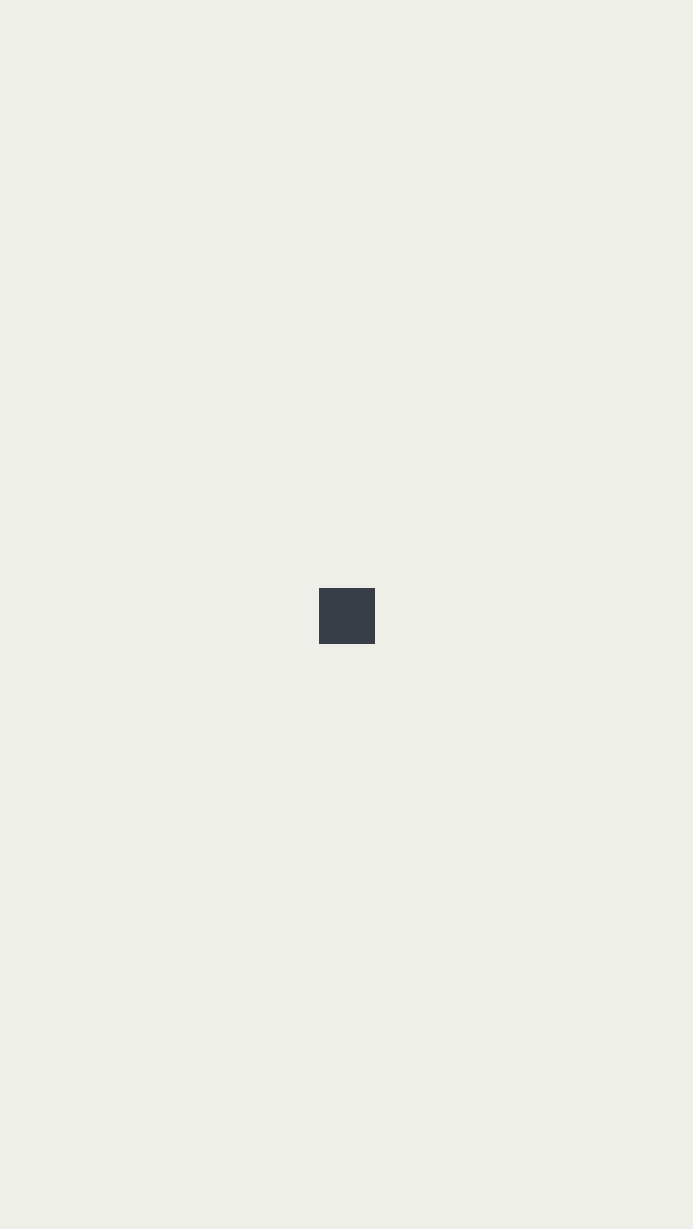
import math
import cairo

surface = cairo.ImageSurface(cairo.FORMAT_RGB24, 693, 1229)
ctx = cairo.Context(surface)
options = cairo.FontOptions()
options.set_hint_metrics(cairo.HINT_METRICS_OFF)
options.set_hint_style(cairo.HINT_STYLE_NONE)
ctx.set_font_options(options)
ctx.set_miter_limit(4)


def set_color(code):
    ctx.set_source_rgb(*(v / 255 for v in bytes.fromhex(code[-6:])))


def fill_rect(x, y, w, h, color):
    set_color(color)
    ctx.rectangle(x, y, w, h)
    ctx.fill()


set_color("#eeefe9")
ctx.paint()
fill_rect(319, 588, 56, 56, "#393e46")
surface.write_to_png("output.png")
